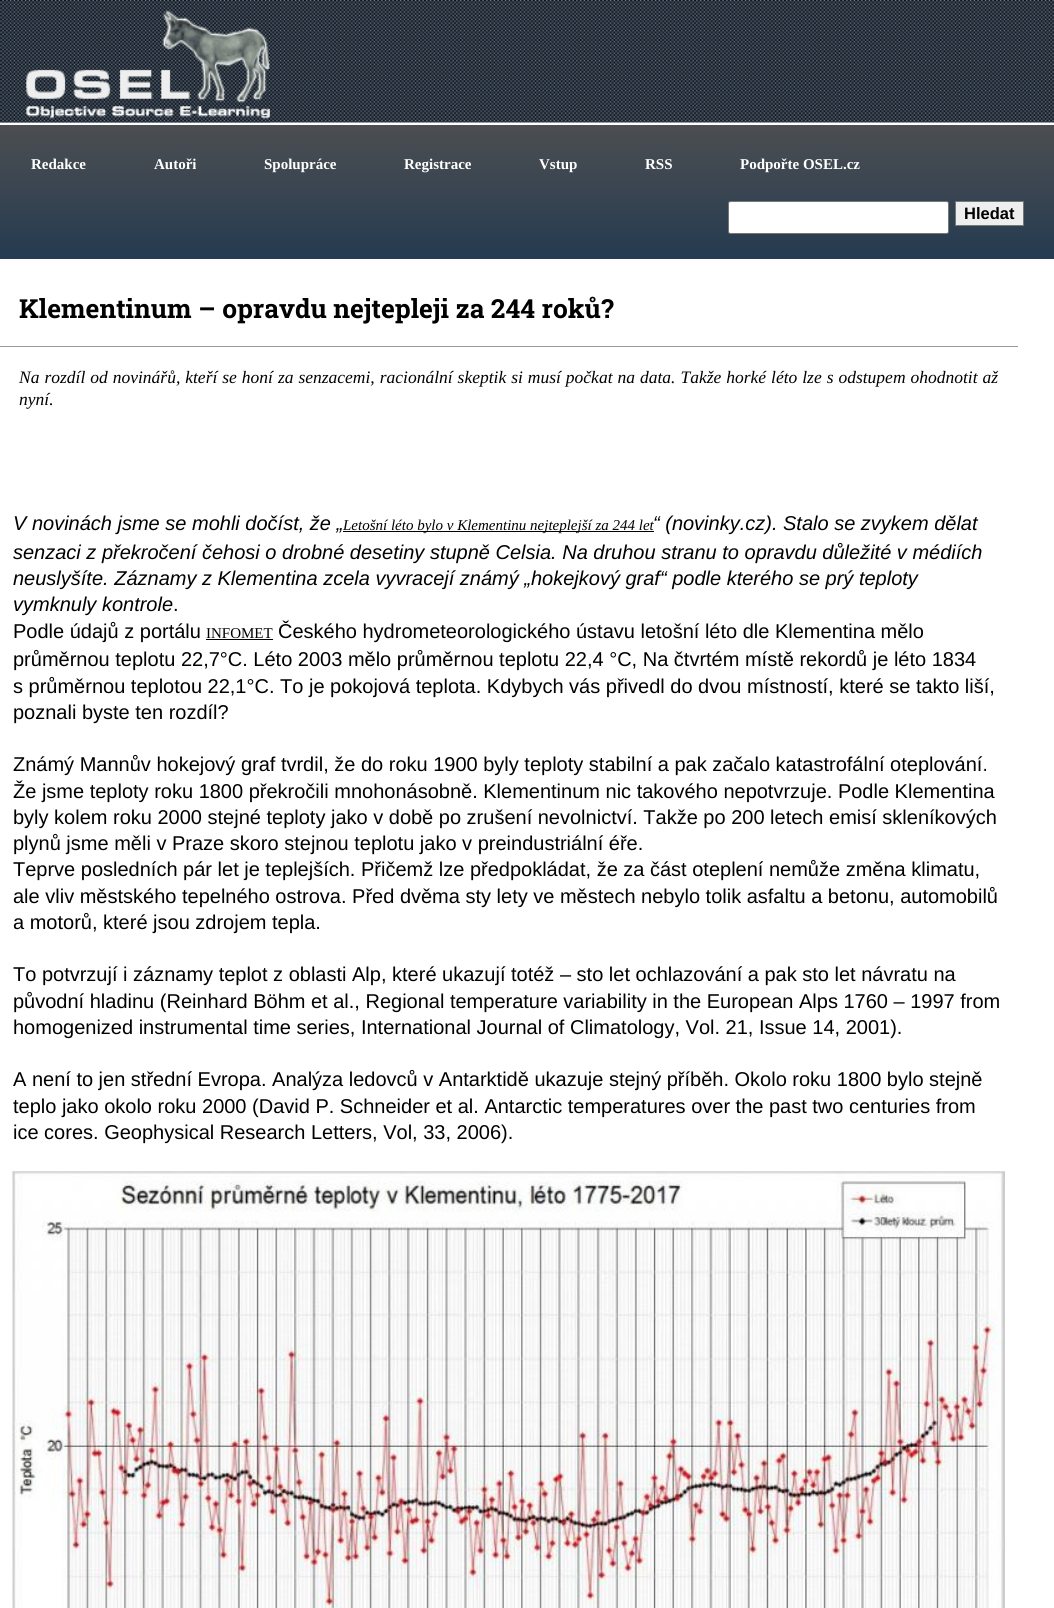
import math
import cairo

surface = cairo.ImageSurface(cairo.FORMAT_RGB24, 1054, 1608)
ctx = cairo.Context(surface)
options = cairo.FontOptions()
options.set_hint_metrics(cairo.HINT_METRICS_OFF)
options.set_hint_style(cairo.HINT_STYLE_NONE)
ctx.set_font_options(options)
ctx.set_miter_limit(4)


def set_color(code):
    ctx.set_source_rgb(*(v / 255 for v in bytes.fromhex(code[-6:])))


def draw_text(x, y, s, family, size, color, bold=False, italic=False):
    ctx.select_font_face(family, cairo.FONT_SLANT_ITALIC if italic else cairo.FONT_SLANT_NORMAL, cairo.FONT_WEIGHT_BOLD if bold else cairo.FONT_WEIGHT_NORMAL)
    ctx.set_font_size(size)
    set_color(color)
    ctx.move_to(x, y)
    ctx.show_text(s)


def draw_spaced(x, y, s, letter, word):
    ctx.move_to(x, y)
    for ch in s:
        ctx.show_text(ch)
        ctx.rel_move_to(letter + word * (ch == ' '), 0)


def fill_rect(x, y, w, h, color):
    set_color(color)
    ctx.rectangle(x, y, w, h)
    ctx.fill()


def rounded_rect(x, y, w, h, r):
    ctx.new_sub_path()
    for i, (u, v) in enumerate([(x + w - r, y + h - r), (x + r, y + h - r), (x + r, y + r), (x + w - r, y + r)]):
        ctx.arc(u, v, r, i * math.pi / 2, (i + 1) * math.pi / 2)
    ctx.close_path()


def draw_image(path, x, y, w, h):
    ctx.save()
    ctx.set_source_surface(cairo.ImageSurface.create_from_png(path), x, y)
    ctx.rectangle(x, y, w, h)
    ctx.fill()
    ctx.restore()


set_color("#ffffff")
ctx.paint()
draw_image("assets/img1.png", 0, 0, 1054, 123)
draw_image("assets/img2.png", 0, 0, 270, 123)
gradient = cairo.LinearGradient(528, 125, 528, 259)
gradient.add_color_stop_rgba(0, 0.294, 0.306, 0.318, 1)
gradient.add_color_stop_rgba(0.43, 0.235, 0.275, 0.318, 1)
gradient.add_color_stop_rgba(1, 0.141, 0.231, 0.318, 1)
ctx.set_source(gradient)
ctx.rectangle(0, 125, 1054, 134)
ctx.fill()
draw_text(31, 169, "Redakce", "Liberation Serif", 15, "#ffffff", bold=True)
draw_text(154, 169, "Autoři", "Liberation Serif", 15, "#ffffff", bold=True)
draw_text(264, 169, "Spolupráce", "Liberation Serif", 15, "#ffffff", bold=True)
draw_text(404, 169, "Registrace", "Liberation Serif", 15, "#ffffff", bold=True)
draw_text(539, 169, "Vstup", "Liberation Serif", 15, "#ffffff", bold=True)
draw_text(645, 169, "RSS", "Liberation Serif", 15, "#ffffff", bold=True)
draw_text(740, 169, "Podpořte OSEL.cz", "Liberation Serif", 15, "#ffffff", bold=True)
rounded_rect(728.5, 201.5, 220, 32, 2)
ctx.fill_preserve()
set_color("#767676")
ctx.set_line_width(1)
ctx.stroke()
set_color("#eeeeee")
ctx.rectangle(955.5, 201.5, 68, 24)
ctx.fill_preserve()
set_color("#777777")
ctx.stroke()
draw_text(964, 219, "Hledat", "Liberation Sans", 16.5, "#000000", bold=True)
fill_rect(0, 346, 1018, 1, "#999999")
draw_text(19, 318, "Klementinum – opravdu nejtepleji za 244 roků?", "Roboto Slab", 26.25, "#000000", bold=True)
ctx.select_font_face("Liberation Serif", cairo.FONT_SLANT_ITALIC)
ctx.set_font_size(17.5)
draw_spaced(19, 383, "Na rozdíl od novinářů, kteří se honí za senzacemi, racionální skeptik si musí počkat na data. Takže horké léto lze s odstupem ohodnotit až", 0, 0.6)
draw_text(19, 405, "nyní.", "Liberation Serif", 17.5, "#000000", italic=True)
draw_text(13, 530, "V novinách jsme se mohli dočíst, že „", "Liberation Sans", 20, "#000000", italic=True)
fill_rect(343, 531, 311, 1, "#000000")
draw_text(343, 530, "Letošní léto bylo v Klementinu nejteplejší za 244 let", "Liberation Serif", 15, "#000000", italic=True)
draw_text(653, 530, "“ (novinky.cz). Stalo se zvykem dělat", "Liberation Sans", 20, "#000000", italic=True)
draw_text(13, 559, "senzaci z překročení čehosi o drobné desetiny stupně Celsia. Na druhou stranu to opravdu důležité v médiích", "Liberation Sans", 20, "#000000", italic=True)
draw_text(13, 585, "neuslyšíte. Záznamy z Klementina zcela vyvracejí známý „hokejkový graf“ podle kterého se prý teploty", "Liberation Sans", 20, "#000000", italic=True)
draw_text(13, 611, "vymknuly kontrole", "Liberation Sans", 20, "#000000", italic=True)
draw_text(173, 611, ".", "Liberation Sans", 20, "#000000")
draw_text(13, 638, "Podle údajů z portálu", "Liberation Sans", 20, "#000000")
draw_text(206, 638, "INFOMET", "Liberation Serif", 15, "#000000")
fill_rect(206, 639, 67, 1, "#000000")
draw_text(278, 638, "Českého hydrometeorologického ústavu letošní léto dle Klementina mělo", "Liberation Sans", 20, "#000000")
draw_text(13, 666, "průměrnou teplotu 22,7°C. Léto 2003 mělo průměrnou teplotu 22,4 °C, Na čtvrtém místě rekordů je léto 1834", "Liberation Sans", 20, "#000000")
draw_text(13, 693, "s průměrnou teplotou 22,1°C. To je pokojová teplota. Kdybych vás přivedl do dvou místností, které se takto liší,", "Liberation Sans", 20, "#000000")
draw_text(13, 719, "poznali byste ten rozdíl?", "Liberation Sans", 20, "#000000")
draw_text(13, 771, "Známý Mannův hokejový graf tvrdil, že do roku 1900 byly teploty stabilní a pak začalo katastrofální oteplování.", "Liberation Sans", 20, "#000000")
draw_text(13, 798, "Že jsme teploty roku 1800 překročili mnohonásobně. Klementinum nic takového nepotvrzuje. Podle Klementina", "Liberation Sans", 20, "#000000")
draw_text(13, 824, "byly kolem roku 2000 stejné teploty jako v době po zrušení nevolnictví. Takže po 200 letech emisí skleníkových", "Liberation Sans", 20, "#000000")
draw_text(13, 850, "plynů jsme měli v Praze skoro stejnou teplotu jako v preindustriální éře.", "Liberation Sans", 20, "#000000")
draw_text(13, 876, "Teprve posledních pár let je teplejších. Přičemž lze předpokládat, že za část oteplení nemůže změna klimatu,", "Liberation Sans", 20, "#000000")
draw_text(13, 903, "ale vliv městského tepelného ostrova. Před dvěma sty lety ve městech nebylo tolik asfaltu a betonu, automobilů", "Liberation Sans", 20, "#000000")
draw_text(13, 929, "a motorů, které jsou zdrojem tepla.", "Liberation Sans", 20, "#000000")
draw_text(13, 981, "To potvrzují i záznamy teplot z oblasti Alp, které ukazují totéž – sto let ochlazování a pak sto let návratu na", "Liberation Sans", 20, "#000000")
draw_text(13, 1008, "původní hladinu (Reinhard Böhm et al., Regional temperature variability in the European Alps 1760 – 1997 from", "Liberation Sans", 20, "#000000")
draw_text(13, 1034, "homogenized instrumental time series, International Journal of Climatology, Vol. 21, Issue 14, 2001).", "Liberation Sans", 20, "#000000")
draw_text(13, 1086, "A není to jen střední Evropa. Analýza ledovců v Antarktidě ukazuje stejný příběh. Okolo roku 1800 bylo stejně", "Liberation Sans", 20, "#000000")
draw_text(13, 1113, "teplo jako okolo roku 2000 (David P. Schneider et al. Antarctic temperatures over the past two centuries from", "Liberation Sans", 20, "#000000")
draw_text(13, 1139, "ice cores. Geophysical Research Letters, Vol, 33, 2006).", "Liberation Sans", 20, "#000000")
draw_image("assets/img3.png", 12, 1171, 993, 437)
surface.write_to_png("output.png")
